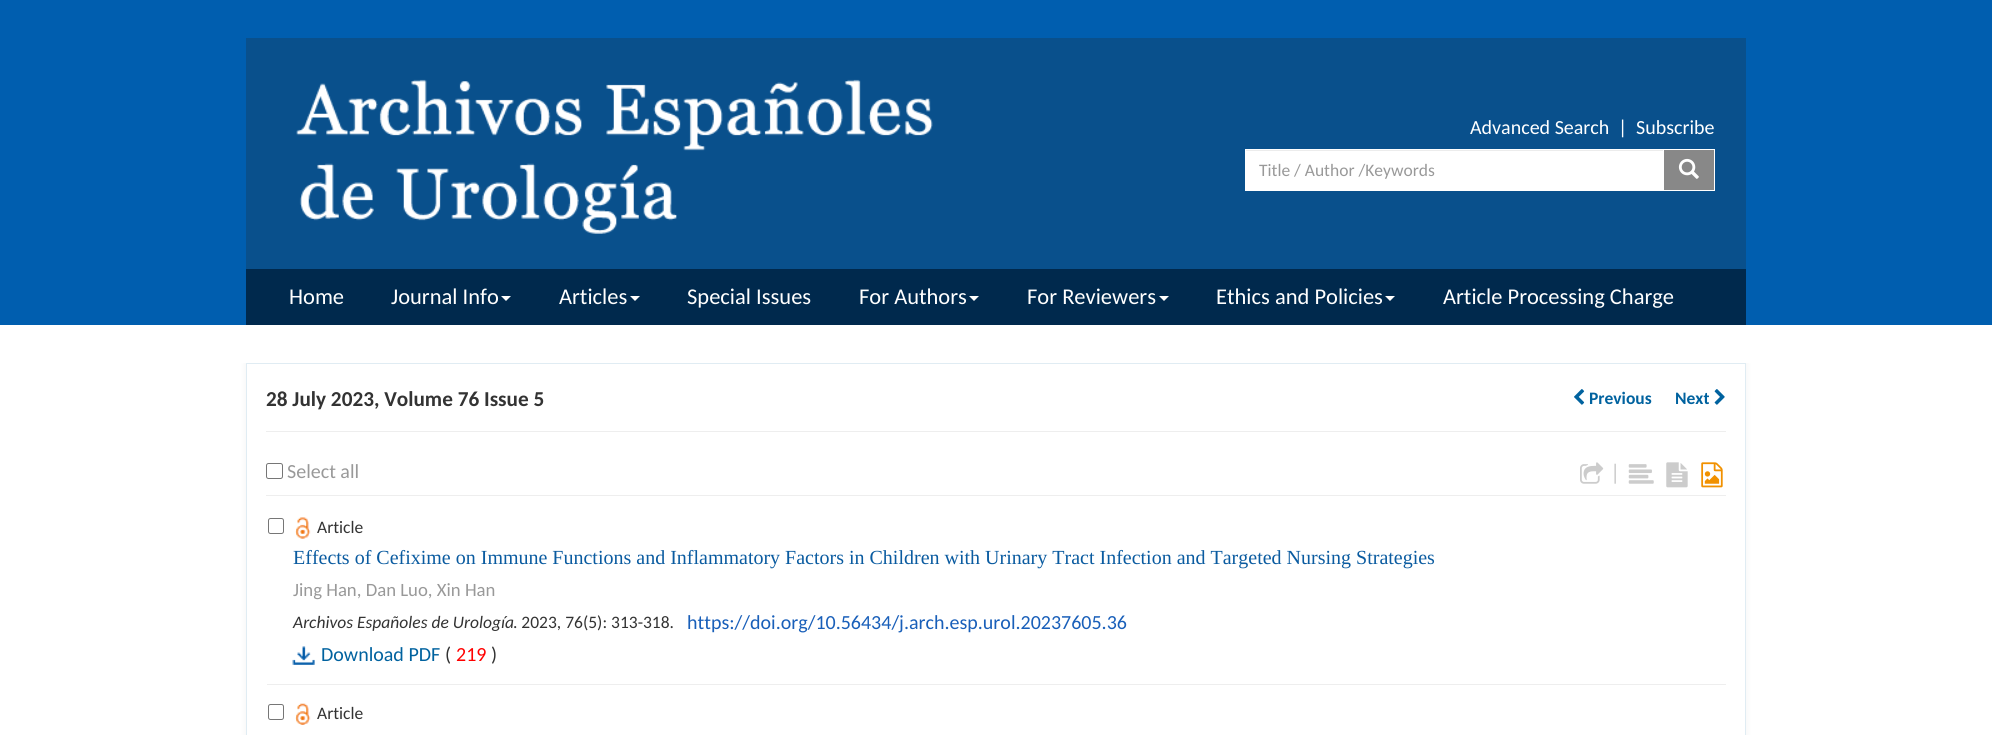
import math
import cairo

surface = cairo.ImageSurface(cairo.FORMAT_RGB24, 1992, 735)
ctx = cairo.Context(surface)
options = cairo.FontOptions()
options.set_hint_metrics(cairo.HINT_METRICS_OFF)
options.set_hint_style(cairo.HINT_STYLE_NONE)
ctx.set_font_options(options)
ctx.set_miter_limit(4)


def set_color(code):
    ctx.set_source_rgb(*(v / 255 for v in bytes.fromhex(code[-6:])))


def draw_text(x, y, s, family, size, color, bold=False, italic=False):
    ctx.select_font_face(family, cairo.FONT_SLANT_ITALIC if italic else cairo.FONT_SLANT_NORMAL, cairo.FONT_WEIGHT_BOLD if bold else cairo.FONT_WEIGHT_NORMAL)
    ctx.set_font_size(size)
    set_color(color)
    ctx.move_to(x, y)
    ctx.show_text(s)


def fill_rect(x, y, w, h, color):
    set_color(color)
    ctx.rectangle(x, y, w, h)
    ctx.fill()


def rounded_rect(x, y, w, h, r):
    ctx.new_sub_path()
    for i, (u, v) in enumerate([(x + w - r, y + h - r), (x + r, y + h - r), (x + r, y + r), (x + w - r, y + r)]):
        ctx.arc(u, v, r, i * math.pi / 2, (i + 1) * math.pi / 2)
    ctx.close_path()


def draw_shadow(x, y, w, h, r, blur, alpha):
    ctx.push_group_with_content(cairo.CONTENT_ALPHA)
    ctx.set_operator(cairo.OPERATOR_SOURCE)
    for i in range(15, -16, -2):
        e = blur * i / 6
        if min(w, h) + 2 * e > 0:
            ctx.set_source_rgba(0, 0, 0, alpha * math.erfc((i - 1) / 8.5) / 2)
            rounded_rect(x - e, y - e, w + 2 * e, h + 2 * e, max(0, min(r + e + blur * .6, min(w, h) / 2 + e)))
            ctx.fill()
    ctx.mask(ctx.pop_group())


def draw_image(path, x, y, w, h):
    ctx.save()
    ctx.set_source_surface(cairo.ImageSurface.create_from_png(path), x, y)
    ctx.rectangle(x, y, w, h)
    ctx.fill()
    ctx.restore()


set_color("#ffffff")
ctx.paint()
fill_rect(0, 0, 1992, 325, "#005eaf")
fill_rect(246, 38, 1500, 231, "#09508c")
draw_image("assets/img1.png", 296, 79, 637, 155)
draw_text(1470, 134, "Advanced Search", "Carlito", 20, "#ffffff")
draw_text(1618, 134, "|", "Carlito", 20, "#ffffff")
draw_text(1636, 134, "Subscribe", "Carlito", 20, "#ffffff")
fill_rect(1245, 149, 418, 42, "#ffffff")
fill_rect(1246, 150, 417, 1, "#ececec")
draw_text(1259, 176, "Title / Author /Keywords", "Carlito", 17.5, "#999999")
set_color("#888888")
ctx.rectangle(1663.5, 149.5, 51, 41)
ctx.fill_preserve()
set_color("#ffffff")
ctx.set_line_width(1)
ctx.stroke()
draw_image("assets/img2.png", 1678, 158, 21, 21)
fill_rect(246, 269, 1500, 56, "#00294d")
draw_text(289, 304, "Home", "Carlito", 22.5, "#ffffff")
draw_text(391, 304, "Journal Info", "Carlito", 22.5, "#ffffff")
ctx.new_path()
ctx.move_to(501, 296)
ctx.line_to(511, 296)
ctx.line_to(506, 301)
ctx.close_path()
ctx.fill()
draw_text(559, 304, "Articles", "Carlito", 22.5, "#ffffff")
ctx.new_path()
ctx.move_to(630, 296)
ctx.line_to(640, 296)
ctx.line_to(635, 301)
ctx.close_path()
ctx.fill()
draw_text(687, 304, "Special Issues", "Carlito", 22.5, "#ffffff")
draw_text(859, 304, "For Authors", "Carlito", 22.5, "#ffffff")
ctx.new_path()
ctx.move_to(969, 296)
ctx.line_to(979, 296)
ctx.line_to(974, 301)
ctx.close_path()
ctx.fill()
draw_text(1027, 304, "For Reviewers", "Carlito", 22.5, "#ffffff")
ctx.new_path()
ctx.move_to(1159, 296)
ctx.line_to(1169, 296)
ctx.line_to(1164, 301)
ctx.close_path()
ctx.fill()
draw_text(1216, 304, "Ethics and Policies", "Carlito", 22.5, "#ffffff")
ctx.new_path()
ctx.move_to(1385, 296)
ctx.line_to(1395, 296)
ctx.line_to(1390, 301)
ctx.close_path()
ctx.fill()
draw_text(1443, 304, "Article Processing Charge", "Carlito", 22.5, "#ffffff")
ctx.save()
ctx.rectangle(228, 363, 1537, 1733)
ctx.clip()
set_color("#7f7f7f")
draw_shadow(246, 363, 1500, 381, 0, 3, 0.1)
ctx.restore()
ctx.rectangle(246.5, 363.5, 1499, 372)
ctx.fill_preserve()
set_color("#e0ecf3")
ctx.stroke()
fill_rect(266, 431, 1460, 1, "#eeeeee")
draw_text(266, 406, "28 July 2023, Volume 76 Issue 5", "Carlito", 21.25, "#333333", bold=True)
draw_image("assets/img3.png", 1574, 389, 11, 16)
draw_text(1589, 404, "Previous", "Carlito", 17.5, "#00629f", bold=True)
draw_text(1675, 404, "Next", "Carlito", 17.5, "#00629f", bold=True)
draw_image("assets/img4.png", 1714, 389, 11, 16)
fill_rect(266, 495, 1460, 1, "#eeeeee")
rounded_rect(266.5, 463.5, 16, 15, 2)
set_color("#767676")
ctx.stroke()
draw_text(287, 478, "Select all", "Carlito", 20, "#999999")
draw_image("assets/img5.png", 1580, 462, 24, 22)
draw_text(1610, 480, "|", "Carlito", 22.5, "#cccccc")
draw_image("assets/img6.png", 1628, 464, 26, 20)
draw_image("assets/img7.png", 1666, 462, 22, 26)
draw_image("assets/img8.png", 1701, 462, 22, 26)
fill_rect(266, 684, 1460, 1, "#eeeeee")
fill_rect(266, 684, 1, 1, "#ffffff")
rounded_rect(268.5, 518.5, 15, 15, 2)
set_color("#767676")
ctx.stroke()
draw_image("assets/img9.png", 295, 517, 16, 22)
draw_text(317, 533, "Article", "Carlito", 17.5, "#333333")
draw_text(293, 564, "Effects of Cefixime on Immune Functions and Inflammatory Factors in Children with Urinary Tract Infection and Targeted Nursing Strategies", "Liberation Serif", 20, "#0a5ba0")
draw_text(293, 596, "Jing Han, Dan Luo, Xin Han", "Carlito", 18.75, "#999999")
draw_text(293, 628, "Archivos Españoles de Urología", "Carlito", 17.5, "#333333", italic=True)
draw_text(513, 628, ". 2023, 76(5): 313-318.", "Carlito", 17.5, "#333333")
draw_text(687, 629, "https://doi.org/10.56434/j.arch.esp.urol.20237605.36", "Carlito", 20, "#195fb9")
draw_image("assets/img10.png", 292, 646, 23, 19)
draw_text(321, 661, "Download PDF", "Carlito", 20, "#00629f")
draw_text(445, 661, "(", "Carlito", 20, "#333333")
draw_text(456, 661, "219", "Carlito", 20, "#ff0000")
draw_text(491, 661, ")", "Carlito", 20, "#333333")
rounded_rect(268.5, 704.5, 15, 15, 2)
set_color("#767676")
ctx.stroke()
draw_image("assets/img11.png", 295, 703, 16, 22)
draw_text(317, 719, "Article", "Carlito", 17.5, "#333333")
surface.write_to_png("output.png")
